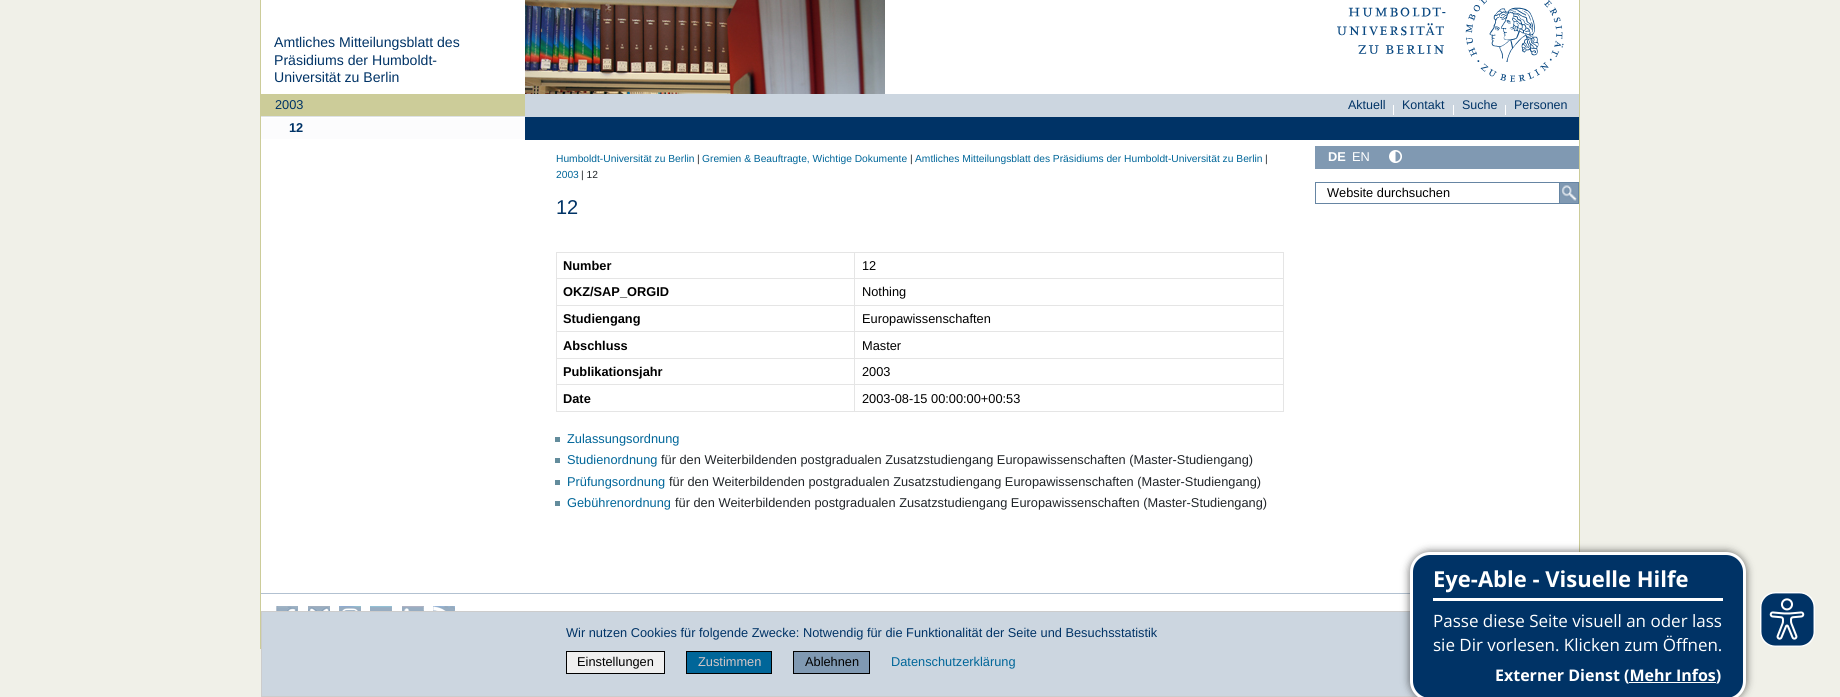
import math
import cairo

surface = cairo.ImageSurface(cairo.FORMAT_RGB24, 1840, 697)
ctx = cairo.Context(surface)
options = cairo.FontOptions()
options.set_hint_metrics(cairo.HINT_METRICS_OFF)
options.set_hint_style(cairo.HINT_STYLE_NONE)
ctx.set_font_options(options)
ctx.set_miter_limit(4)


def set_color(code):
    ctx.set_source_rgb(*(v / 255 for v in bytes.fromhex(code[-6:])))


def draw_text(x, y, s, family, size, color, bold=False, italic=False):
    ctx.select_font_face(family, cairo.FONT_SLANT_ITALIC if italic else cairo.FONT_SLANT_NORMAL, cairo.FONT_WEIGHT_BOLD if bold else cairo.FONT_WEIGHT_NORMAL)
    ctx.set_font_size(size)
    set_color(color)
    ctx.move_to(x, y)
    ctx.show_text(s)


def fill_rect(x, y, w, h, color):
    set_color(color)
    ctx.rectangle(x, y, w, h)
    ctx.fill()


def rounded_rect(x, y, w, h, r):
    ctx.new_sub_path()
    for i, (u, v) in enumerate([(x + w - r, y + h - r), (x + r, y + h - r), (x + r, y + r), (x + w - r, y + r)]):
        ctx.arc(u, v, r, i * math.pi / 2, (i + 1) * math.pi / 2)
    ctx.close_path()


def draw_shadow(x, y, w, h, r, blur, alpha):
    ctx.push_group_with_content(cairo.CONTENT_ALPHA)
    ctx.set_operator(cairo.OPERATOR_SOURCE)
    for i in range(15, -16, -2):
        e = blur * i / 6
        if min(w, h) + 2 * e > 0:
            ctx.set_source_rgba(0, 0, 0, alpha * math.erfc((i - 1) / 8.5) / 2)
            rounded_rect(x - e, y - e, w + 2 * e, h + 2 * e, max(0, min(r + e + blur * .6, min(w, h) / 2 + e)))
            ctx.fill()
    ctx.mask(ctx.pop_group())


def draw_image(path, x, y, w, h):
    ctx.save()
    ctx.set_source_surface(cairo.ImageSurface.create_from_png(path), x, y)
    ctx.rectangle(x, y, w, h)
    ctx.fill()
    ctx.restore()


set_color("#f0f0e8")
ctx.paint()
fill_rect(261, 0, 1318, 567, "#ffffff")
draw_image("assets/img1.png", 525, 0, 360, 94)
draw_image("assets/img2.png", 1337, 0, 227, 82)
fill_rect(1579, 0, 1, 552, "#cccc99")
fill_rect(260, 0, 1, 649, "#cccc99")
draw_text(274, 47, "Amtliches Mitteilungsblatt des", "Liberation Sans", 14.1, "#003366")
draw_text(274, 65, "Präsidiums der Humboldt-", "Liberation Sans", 14.1, "#003366")
draw_text(274, 82, "Universität zu Berlin", "Liberation Sans", 14.1, "#003366")
fill_rect(261, 94, 264, 22, "#cccc99")
draw_text(275, 109, "2003", "Liberation Sans", 12.8, "#003366")
fill_rect(261, 116, 264, 1, "#dee2e6")
fill_rect(261, 118, 264, 21, "#fcfcfd")
draw_text(289, 132, "12", "Liberation Sans", 12.8, "#003366", bold=True)
fill_rect(525, 94, 1054, 23, "#ccd6e0")
draw_text(1348, 109, "Aktuell", "Liberation Sans", 12.5, "#003366")
fill_rect(1393, 105, 1, 10, "#ffffff")
draw_text(1402, 109, "Kontakt", "Liberation Sans", 12.5, "#003366")
fill_rect(1453, 105, 1, 10, "#ffffff")
draw_text(1462, 109, "Suche", "Liberation Sans", 12.5, "#003366")
fill_rect(1505, 105, 1, 10, "#ffffff")
draw_text(1514, 109, "Personen", "Liberation Sans", 12.5, "#003366")
fill_rect(525, 117, 1054, 23, "#003366")
draw_text(556, 162, "Humboldt-Universität zu Berlin", "Liberation Sans", 10.25, "#006699")
draw_text(697, 162, "|", "Liberation Sans", 10.25, "#212529")
draw_text(702, 162, "Gremien & Beauftragte, Wichtige Dokumente", "Liberation Sans", 10.25, "#006699")
draw_text(910, 162, "|", "Liberation Sans", 10.25, "#212529")
draw_text(915, 162, "Amtliches Mitteilungsblatt des Präsidiums der Humboldt-Universität zu Berlin", "Liberation Sans", 10.25, "#006699")
draw_text(1265, 162, "|", "Liberation Sans", 10.25, "#212529")
draw_text(556, 178, "2003", "Liberation Sans", 10.25, "#006699")
draw_text(581, 178, "| 12", "Liberation Sans", 10.25, "#212529")
draw_text(556, 214, "12", "Liberation Sans", 20, "#003366")
fill_rect(854, 252, 430, 1, "#e5e5e5")
fill_rect(854, 278, 430, 1, "#e5e5e5")
fill_rect(854, 305, 430, 1, "#e5e5e5")
fill_rect(854, 331, 430, 1, "#e5e5e5")
fill_rect(854, 358, 430, 1, "#e5e5e5")
fill_rect(854, 384, 430, 1, "#e5e5e5")
fill_rect(1283, 384, 1, 28, "#e5e5e5")
fill_rect(854, 411, 430, 1, "#e5e5e5")
fill_rect(854, 384, 1, 28, "#e5e5e5")
fill_rect(556, 384, 299, 1, "#e5e5e5")
fill_rect(854, 358, 1, 27, "#e5e5e5")
fill_rect(556, 358, 299, 1, "#e5e5e5")
fill_rect(854, 331, 1, 28, "#e5e5e5")
fill_rect(556, 331, 299, 1, "#e5e5e5")
fill_rect(854, 305, 1, 27, "#e5e5e5")
fill_rect(556, 305, 299, 1, "#e5e5e5")
fill_rect(854, 278, 1, 28, "#e5e5e5")
fill_rect(556, 278, 299, 1, "#e5e5e5")
fill_rect(854, 252, 1, 27, "#e5e5e5")
fill_rect(556, 252, 299, 1, "#e5e5e5")
fill_rect(556, 411, 299, 1, "#e5e5e5")
fill_rect(556, 384, 1, 28, "#e5e5e5")
fill_rect(556, 358, 1, 27, "#e5e5e5")
fill_rect(556, 331, 1, 28, "#e5e5e5")
fill_rect(556, 305, 1, 27, "#e5e5e5")
fill_rect(556, 278, 1, 28, "#e5e5e5")
fill_rect(556, 252, 1, 27, "#e5e5e5")
draw_text(563, 270, "Number", "Liberation Sans", 12.8, "#000000", bold=True)
fill_rect(1283, 358, 1, 27, "#e5e5e5")
fill_rect(1283, 331, 1, 28, "#e5e5e5")
fill_rect(1283, 305, 1, 27, "#e5e5e5")
fill_rect(1283, 278, 1, 28, "#e5e5e5")
fill_rect(1283, 252, 1, 27, "#e5e5e5")
draw_text(862, 270, "12", "Liberation Sans", 12.8, "#000000")
draw_text(563, 296, "OKZ/SAP_ORGID", "Liberation Sans", 12.8, "#000000", bold=True)
draw_text(862, 296, "Nothing", "Liberation Sans", 12.8, "#000000")
draw_text(563, 323, "Studiengang", "Liberation Sans", 12.8, "#000000", bold=True)
draw_text(862, 323, "Europawissenschaften", "Liberation Sans", 12.8, "#000000")
draw_text(563, 350, "Abschluss", "Liberation Sans", 12.8, "#000000", bold=True)
draw_text(862, 350, "Master", "Liberation Sans", 12.8, "#000000")
draw_text(563, 376, "Publikationsjahr", "Liberation Sans", 12.8, "#000000", bold=True)
draw_text(862, 376, "2003", "Liberation Sans", 12.8, "#000000")
draw_text(563, 403, "Date", "Liberation Sans", 12.8, "#000000", bold=True)
draw_text(862, 403, "2003-08-15 00:00:00+00:53", "Liberation Sans", 12.8, "#000000")
fill_rect(555, 437, 5, 5, "#638c9c")
draw_text(567, 443, "Zulassungsordnung", "Liberation Sans", 12.8, "#006699")
fill_rect(555, 458, 5, 5, "#638c9c")
draw_text(567, 464, "Studienordnung", "Liberation Sans", 12.8, "#006699")
draw_text(661, 464, "für den Weiterbildenden postgradualen Zusatzstudiengang Europawissenschaften (Master-Studiengang)", "Liberation Sans", 12.8, "#212529")
fill_rect(555, 480, 5, 5, "#638c9c")
draw_text(567, 486, "Prüfungsordnung", "Liberation Sans", 12.8, "#006699")
draw_text(669, 486, "für den Weiterbildenden postgradualen Zusatzstudiengang Europawissenschaften (Master-Studiengang)", "Liberation Sans", 12.8, "#212529")
fill_rect(555, 501, 5, 5, "#638c9c")
draw_text(567, 507, "Gebührenordnung", "Liberation Sans", 12.8, "#006699")
draw_text(675, 507, "für den Weiterbildenden postgradualen Zusatzstudiengang Europawissenschaften (Master-Studiengang)", "Liberation Sans", 12.8, "#212529")
fill_rect(1315, 146, 264, 23, "#8099b2")
draw_text(1328, 161, "DE", "Liberation Sans", 12.8, "#ffffff", bold=True)
draw_text(1352, 161, "EN", "Liberation Sans", 12.8, "#ffffff")
draw_image("assets/img3.png", 1389, 150, 13, 13)
ctx.rectangle(1315.5, 182.5, 263, 21)
set_color("#6685a3")
ctx.set_line_width(1)
ctx.stroke()
draw_text(1327, 197, "Website durchsuchen", "Liberation Sans", 12.8, "#000000")
ctx.rectangle(1559.5, 182.5, 19, 21)
set_color("#6685a3")
ctx.stroke()
draw_image("assets/img4.png", 1560, 183, 18, 20)
fill_rect(261, 567, 1150, 44, "#ffffff")
fill_rect(261, 593, 1149, 1, "#b2c1d1")
draw_image("assets/img5.png", 276, 606, 22, 5)
draw_image("assets/img6.png", 308, 606, 22, 5)
draw_image("assets/img7.png", 339, 606, 22, 5)
draw_image("assets/img8.png", 370, 606, 22, 5)
draw_image("assets/img9.png", 402, 606, 22, 5)
draw_image("assets/img10.png", 433, 606, 22, 5)
fill_rect(262, 612, 1155, 84, "#ccd6e0")
ctx.rectangle(261.5, 611.5, 1319, 85)
set_color("#cccccc")
ctx.stroke()
draw_text(566, 637, "Wir nutzen Cookies für folgende Zwecke: Notwendig für die Funktionalität der Seite und Besuchsstatistik", "Liberation Sans", 12.8, "#003366")
set_color("#efefef")
ctx.rectangle(566.5, 651.5, 98, 22)
ctx.fill_preserve()
set_color("#000000")
ctx.stroke()
draw_text(577, 666, "Einstellungen", "Liberation Sans", 12.8, "#000000")
set_color("#006699")
ctx.rectangle(686.5, 651.5, 85, 22)
ctx.fill_preserve()
set_color("#000000")
ctx.stroke()
draw_text(698, 666, "Zustimmen", "Liberation Sans", 12.8, "#d5c7c7")
set_color("#8099b2")
ctx.rectangle(793.5, 651.5, 76, 22)
ctx.fill_preserve()
set_color("#000000")
ctx.stroke()
draw_text(805, 666, "Ablehnen", "Liberation Sans", 12.8, "#000000")
draw_text(891, 666, "Datenschutzerklärung", "Liberation Sans", 12.8, "#006699")
set_color("#000000")
draw_shadow(1409, 551, 338, 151, 21, 4, 0.5)
set_color("#003366")
rounded_rect(1411.5, 553.5, 333, 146, 18.5)
ctx.fill_preserve()
set_color("#ffffff")
ctx.set_line_width(3)
ctx.stroke()
fill_rect(1433, 598, 290, 3, "#ffffff")
draw_text(1433, 587, "Eye-Able - Visuelle Hilfe", "Open Sans", 22, "#ffffff", bold=True)
draw_text(1433, 627, "Passe diese Seite visuell an oder lass", "Open Sans", 17, "#ffffff")
draw_text(1433, 651, "sie Dir vorlesen. Klicken zum Öffnen.", "Open Sans", 17, "#ffffff")
draw_text(1495, 681, "Externer Dienst (Mehr Infos)", "Open Sans", 16, "#ffffff", bold=True)
fill_rect(1629, 682, 87, 1, "#ffffff")
draw_image("assets/img11.png", 1760, 592, 55, 55)
surface.write_to_png("output.png")
